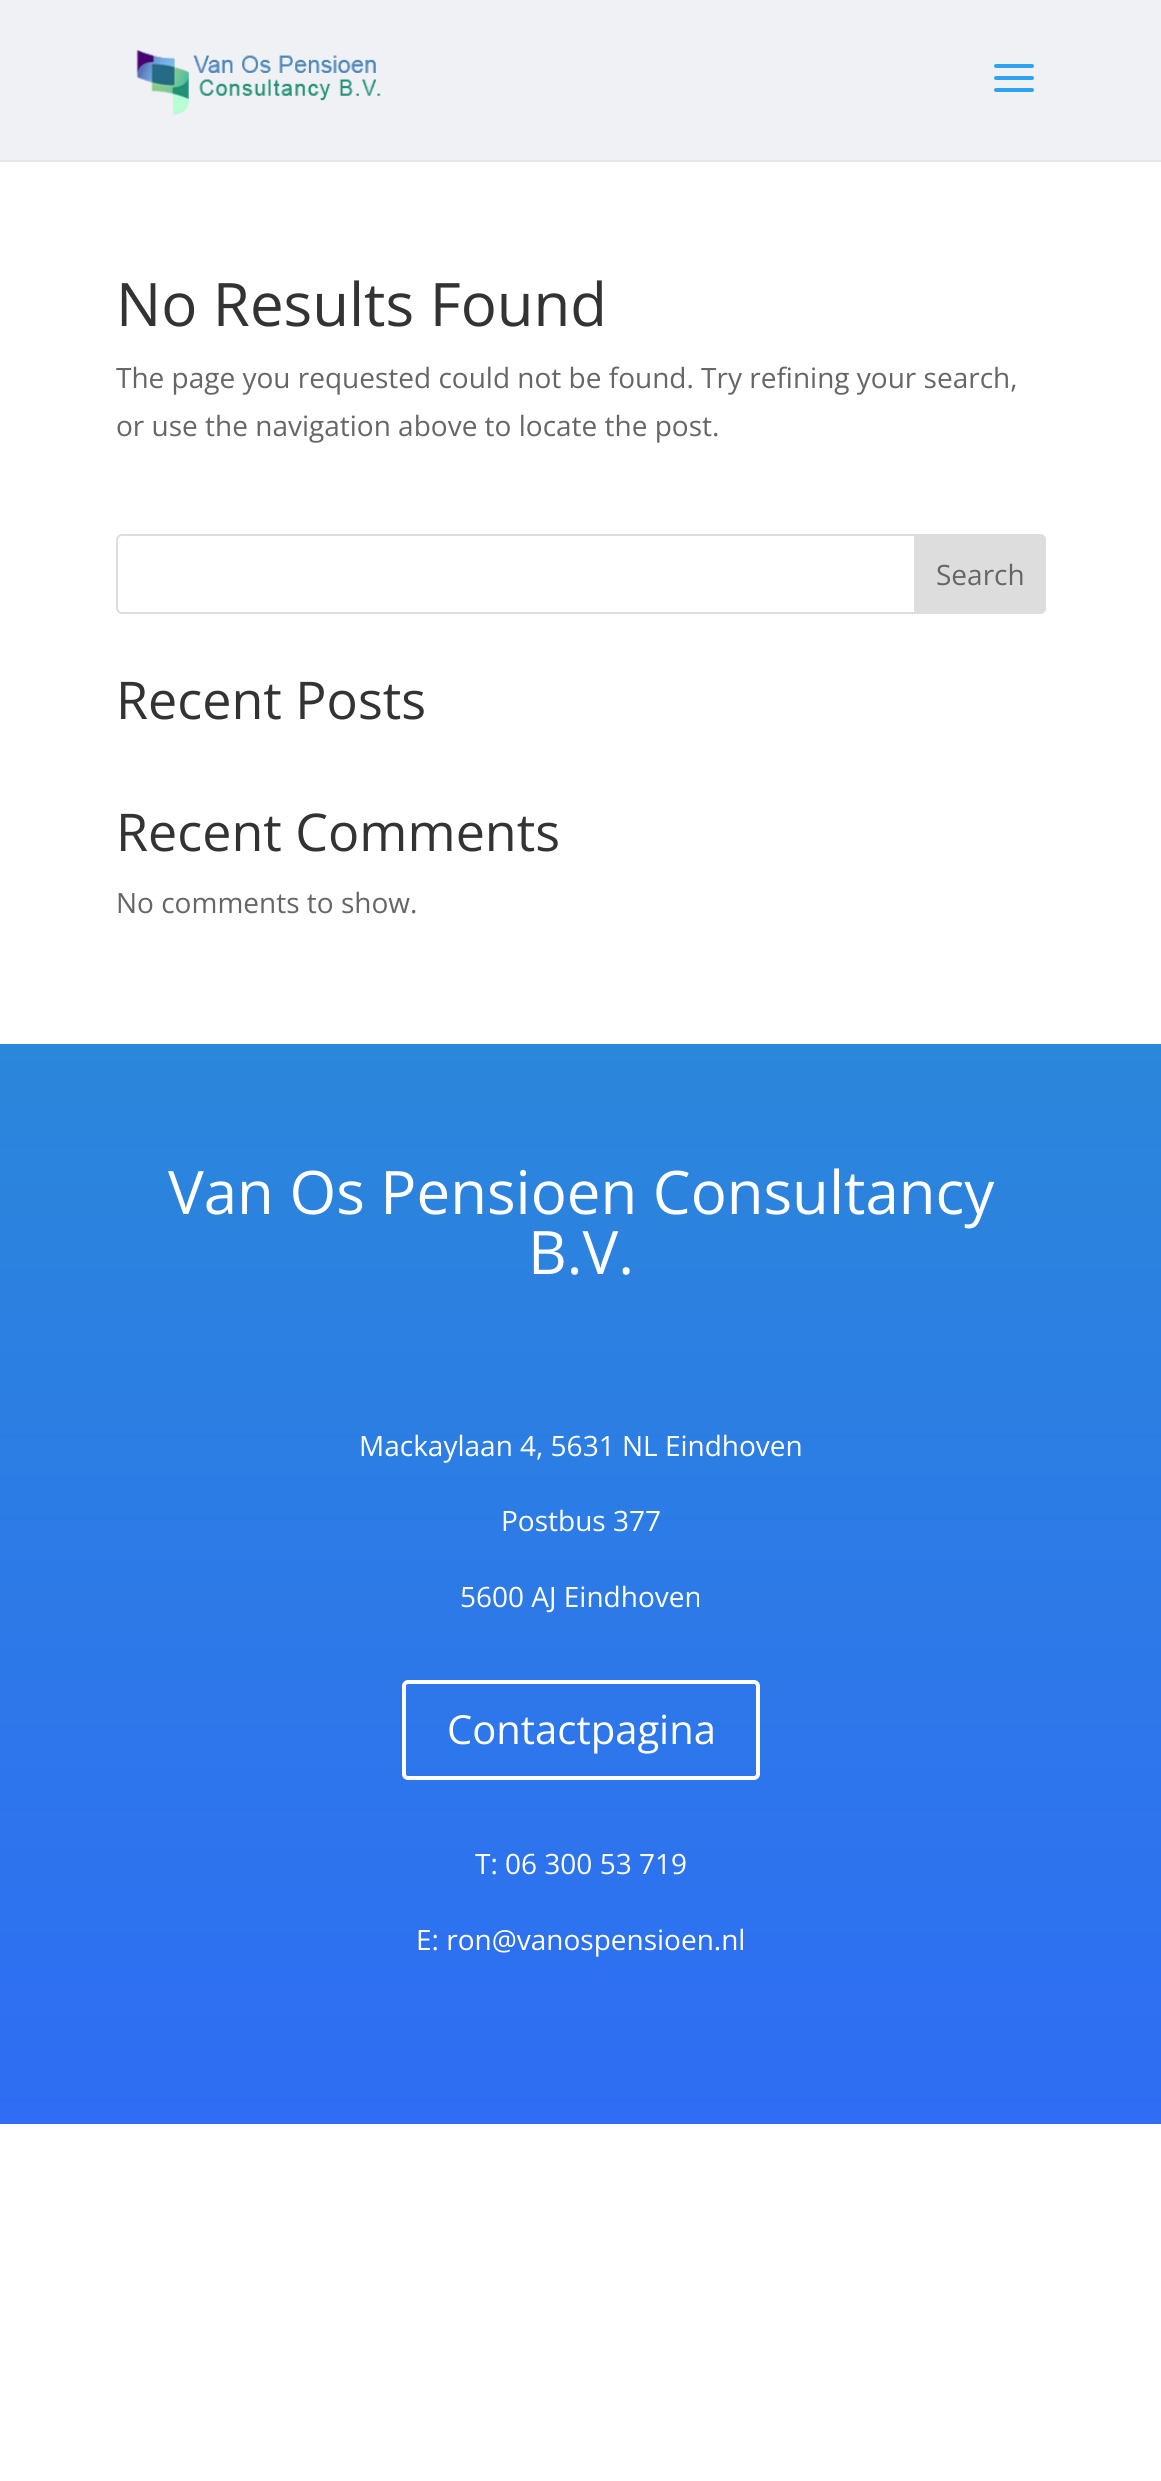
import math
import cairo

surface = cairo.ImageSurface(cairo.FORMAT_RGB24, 1161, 2481)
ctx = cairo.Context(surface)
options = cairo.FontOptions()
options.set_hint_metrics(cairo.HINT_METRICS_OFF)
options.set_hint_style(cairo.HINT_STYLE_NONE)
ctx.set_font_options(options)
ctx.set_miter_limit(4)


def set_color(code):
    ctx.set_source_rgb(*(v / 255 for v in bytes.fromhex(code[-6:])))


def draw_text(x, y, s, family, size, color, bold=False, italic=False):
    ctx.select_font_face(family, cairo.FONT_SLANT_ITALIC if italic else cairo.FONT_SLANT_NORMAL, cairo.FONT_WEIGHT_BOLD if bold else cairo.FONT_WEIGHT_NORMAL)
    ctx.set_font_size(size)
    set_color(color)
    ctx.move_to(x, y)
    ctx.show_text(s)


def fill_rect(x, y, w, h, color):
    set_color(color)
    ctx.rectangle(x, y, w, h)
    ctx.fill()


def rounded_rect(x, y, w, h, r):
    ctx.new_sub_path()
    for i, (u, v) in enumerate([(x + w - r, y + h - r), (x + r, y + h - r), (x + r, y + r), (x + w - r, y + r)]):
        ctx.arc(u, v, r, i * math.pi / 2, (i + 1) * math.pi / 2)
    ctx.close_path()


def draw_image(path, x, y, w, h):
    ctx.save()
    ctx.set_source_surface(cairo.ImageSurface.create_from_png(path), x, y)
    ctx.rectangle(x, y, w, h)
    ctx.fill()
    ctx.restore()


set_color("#ffffff")
ctx.paint()
fill_rect(0, 160, 1161, 2, "#e6e6e6")
fill_rect(0, 0, 1161, 160, "#f0f1f5")
draw_image("assets/img1.png", 136, 50, 245, 66)
draw_image("assets/img2.png", 994, 64, 40, 28)
draw_text(116, 326, "No Results Found", "Open Sans", 60, "#333333")
draw_text(116, 388, "The page you requested could not be found. Try refining your search,", "Open Sans", 28, "#666666")
draw_text(116, 436, "or use the navigation above to locate the post.", "Open Sans", 28, "#666666")
rounded_rect(117, 535, 928, 78, 5)
set_color("#dddddd")
ctx.stroke()
ctx.new_path()
ctx.move_to(915, 535)
ctx.line_to(1040, 535)
ctx.curve_to(1043, 535, 1045, 537, 1045, 540)
ctx.line_to(1045, 608)
ctx.curve_to(1045, 611, 1043, 613, 1040, 613)
ctx.line_to(915, 613)
ctx.close_path()
ctx.fill_preserve()
ctx.stroke()
draw_text(936, 585, "Search", "Open Sans", 28, "#666666")
draw_text(116, 719, "Recent Posts", "Open Sans", 52, "#333333")
draw_text(116, 851, "Recent Comments", "Open Sans", 52, "#333333")
draw_text(116, 913, "No comments to show.", "Open Sans", 28, "#666666")
gradient = cairo.LinearGradient(581, 1044, 581, 2124)
gradient.add_color_stop_rgba(0, 0.169, 0.529, 0.855, 1)
gradient.add_color_stop_rgba(1, 0.18, 0.427, 0.957, 1)
ctx.set_source(gradient)
ctx.rectangle(0, 1044, 1161, 1080)
ctx.fill()
draw_text(168, 1214, "Van Os Pensioen Consultancy", "Open Sans", 60, "#ffffff")
draw_text(528, 1274, "B.V.", "Open Sans", 60, "#ffffff")
draw_text(359, 1456, "Mackaylaan 4, 5631 NL Eindhoven", "Open Sans", 28, "#ffffff")
draw_text(501, 1531, "Postbus 377", "Open Sans", 28, "#ffffff")
draw_text(460, 1607, "5600 AJ Eindhoven", "Open Sans", 28, "#ffffff")
rounded_rect(404, 1682, 354, 96, 4)
ctx.set_line_width(4)
ctx.stroke()
draw_text(447, 1744, "Contactpagina", "Open Sans", 40, "#ffffff")
draw_text(475, 1874, "T: 06 300 53 719", "Open Sans", 28, "#ffffff")
draw_text(416, 1950, "E: ron@vanospensioen.nl", "Open Sans", 28, "#ffffff")
surface.write_to_png("output.png")
